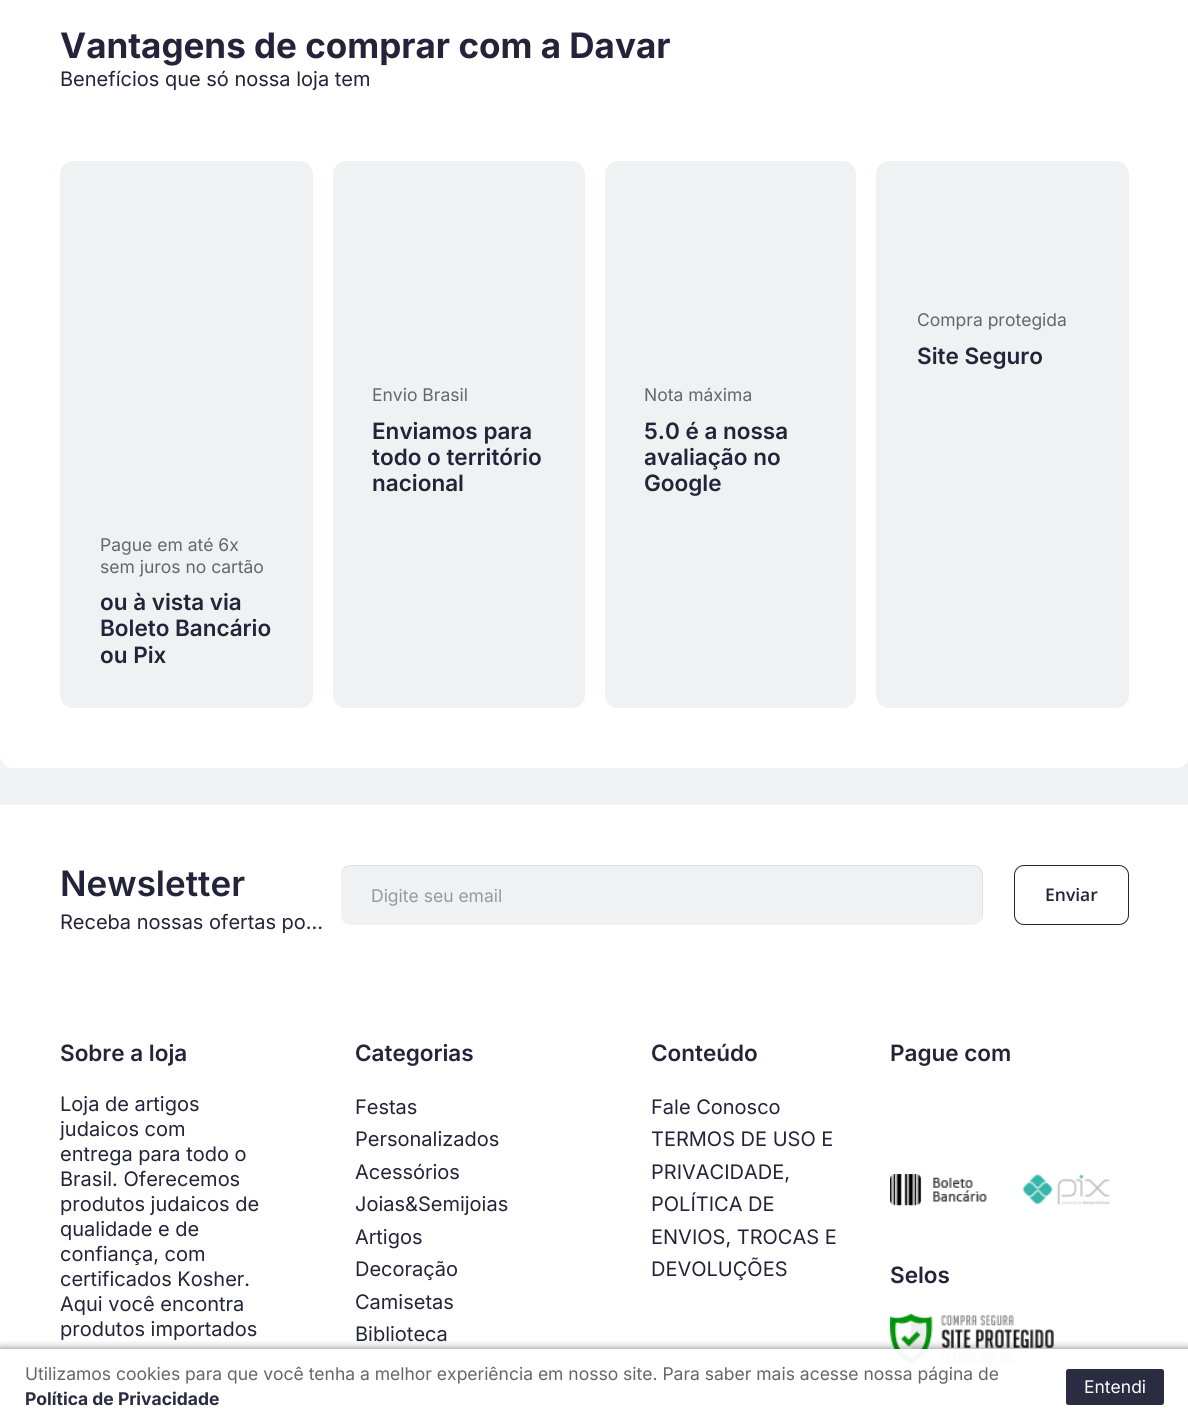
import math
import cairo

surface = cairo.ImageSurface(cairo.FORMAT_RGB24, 1188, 1423)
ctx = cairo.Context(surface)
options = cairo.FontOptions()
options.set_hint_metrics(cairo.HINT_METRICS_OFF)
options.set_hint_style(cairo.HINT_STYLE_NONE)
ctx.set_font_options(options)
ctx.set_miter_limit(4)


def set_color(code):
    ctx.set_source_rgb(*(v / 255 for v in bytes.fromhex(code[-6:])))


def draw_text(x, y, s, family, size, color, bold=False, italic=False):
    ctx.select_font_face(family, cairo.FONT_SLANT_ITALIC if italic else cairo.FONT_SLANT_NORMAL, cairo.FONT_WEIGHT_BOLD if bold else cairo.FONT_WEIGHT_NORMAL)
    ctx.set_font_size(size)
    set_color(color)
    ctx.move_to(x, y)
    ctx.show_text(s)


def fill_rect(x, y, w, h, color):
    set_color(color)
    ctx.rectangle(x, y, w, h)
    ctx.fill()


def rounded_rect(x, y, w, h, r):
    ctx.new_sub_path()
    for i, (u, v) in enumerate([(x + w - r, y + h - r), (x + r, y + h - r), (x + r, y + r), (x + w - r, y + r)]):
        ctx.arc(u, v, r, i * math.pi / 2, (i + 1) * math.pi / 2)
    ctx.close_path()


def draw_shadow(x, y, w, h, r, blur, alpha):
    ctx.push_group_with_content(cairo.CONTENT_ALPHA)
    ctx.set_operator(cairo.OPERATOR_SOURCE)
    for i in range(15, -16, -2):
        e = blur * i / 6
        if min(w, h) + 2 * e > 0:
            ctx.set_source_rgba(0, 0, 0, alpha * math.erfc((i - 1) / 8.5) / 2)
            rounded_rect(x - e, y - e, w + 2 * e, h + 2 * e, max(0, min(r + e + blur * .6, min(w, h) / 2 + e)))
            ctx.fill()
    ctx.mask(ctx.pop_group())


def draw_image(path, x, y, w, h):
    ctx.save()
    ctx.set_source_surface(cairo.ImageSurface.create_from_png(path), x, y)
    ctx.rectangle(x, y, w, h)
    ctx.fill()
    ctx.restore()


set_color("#f1f2f3")
ctx.paint()
set_color("#ffffff")
ctx.new_path()
ctx.move_to(0, -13)
ctx.line_to(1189, -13)
ctx.line_to(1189, 755)
ctx.curve_to(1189, 762, 1183, 768, 1176, 768)
ctx.line_to(13, 768)
ctx.curve_to(6, 768, 0, 762, 0, 755)
ctx.close_path()
ctx.fill()
draw_text(60, 58, "Vantagens de comprar com a Davar", "Inter", 35, "#23243a", bold=True)
draw_text(60, 86, "Benefícios que só nossa loja tem", "Inter", 20, "#23243a")
set_color("#f0f1f2")
rounded_rect(876, 161, 253, 547, 13)
ctx.fill()
draw_text(917, 326, "Compra protegida", "Inter", 17.5, "#666666")
draw_text(917, 364, "Site Seguro", "Inter SemiBold", 22.5, "#23243a")
set_color("#f0f1f2")
rounded_rect(333, 161, 252, 547, 13)
ctx.fill()
draw_text(372, 401, "Envio Brasil", "Inter", 17.5, "#666666")
draw_text(372, 439, "Enviamos para", "Inter SemiBold", 22.5, "#23243a")
draw_text(372, 465, "todo o território", "Inter SemiBold", 22.5, "#23243a")
draw_text(372, 491, "nacional", "Inter SemiBold", 22.5, "#23243a")
set_color("#f0f1f2")
rounded_rect(605, 161, 251, 547, 13)
ctx.fill()
draw_text(644, 401, "Nota máxima", "Inter", 17.5, "#666666")
draw_text(644, 439, "5.0 é a nossa", "Inter SemiBold", 22.5, "#23243a")
draw_text(644, 465, "avaliação no", "Inter SemiBold", 22.5, "#23243a")
draw_text(644, 491, "Google", "Inter SemiBold", 22.5, "#23243a")
set_color("#f0f1f2")
rounded_rect(60, 161, 253, 547, 13)
ctx.fill()
draw_text(100, 551, "Pague em até 6x", "Inter", 17.5, "#666666")
draw_text(100, 573, "sem juros no cartão", "Inter", 17.5, "#666666")
draw_text(100, 610, "ou à vista via", "Inter SemiBold", 22.5, "#23243a")
draw_text(100, 636, "Boleto Bancário", "Inter SemiBold", 22.5, "#23243a")
draw_text(100, 663, "ou Pix", "Inter SemiBold", 22.5, "#23243a")
fill_rect(0, 805, 1188, 618, "#ffffff")
draw_text(60, 896, "Newsletter", "Inter SemiBold", 35, "#23243a")
draw_text(60, 929, "Receba nossas ofertas po…", "Inter", 20, "#23243a")
set_color("#f0f1f2")
rounded_rect(341, 865, 642, 60, 10)
ctx.fill()
ctx.set_source_rgba(0, 0, 0, 0.07)
ctx.new_path()
ctx.move_to(351, 866)
ctx.line_to(972, 866)
ctx.curve_to(978, 866, 982, 871, 982, 876)
ctx.line_to(982, 916)
ctx.curve_to(982, 918, 982, 920, 981, 921)
ctx.curve_to(982, 920, 983, 917, 983, 915)
ctx.line_to(983, 875)
ctx.curve_to(983, 869, 979, 865, 973, 865)
ctx.line_to(351, 865)
ctx.curve_to(345, 865, 341, 869, 341, 875)
ctx.line_to(341, 876)
ctx.curve_to(341, 871, 346, 866, 351, 866)
ctx.close_path()
ctx.fill()
draw_text(371, 902, "Digite seu email", "Inter", 17.5, "#999999")
rounded_rect(1014.5, 865.5, 114, 59, 9.5)
set_color("#23243a")
ctx.set_line_width(1)
ctx.stroke()
draw_text(1045, 901, "Enviar", "Open Sans SemiBold", 17.5, "#23243a")
draw_text(60, 1061, "Sobre a loja", "Inter SemiBold", 22.5, "#23243a")
draw_text(60, 1111, "Loja de artigos", "Inter", 20, "#23243a")
draw_text(60, 1136, "judaicos com", "Inter", 20, "#23243a")
draw_text(60, 1161, "entrega para todo o", "Inter", 20, "#23243a")
draw_text(60, 1186, "Brasil. Oferecemos", "Inter", 20, "#23243a")
draw_text(60, 1211, "produtos judaicos de", "Inter", 20, "#23243a")
draw_text(60, 1236, "qualidade e de", "Inter", 20, "#23243a")
draw_text(60, 1261, "confiança, com", "Inter", 20, "#23243a")
draw_text(60, 1286, "certificados Kosher.", "Inter", 20, "#23243a")
draw_text(60, 1311, "Aqui você encontra", "Inter", 20, "#23243a")
draw_text(60, 1336, "produtos importados", "Inter", 20, "#23243a")
draw_text(355, 1061, "Categorias", "Inter SemiBold", 22.5, "#23243a")
draw_text(355, 1114, "Festas", "Inter", 20, "#23243a")
draw_text(355, 1146, "Personalizados", "Inter", 20, "#23243a")
draw_text(355, 1179, "Acessórios", "Inter", 20, "#23243a")
draw_text(355, 1211, "Joias&Semijoias", "Inter", 20, "#23243a")
draw_text(355, 1244, "Artigos", "Inter", 20, "#23243a")
draw_text(355, 1276, "Decoração", "Inter", 20, "#23243a")
draw_text(355, 1309, "Camisetas", "Inter", 20, "#23243a")
draw_text(355, 1341, "Biblioteca", "Inter", 20, "#23243a")
draw_text(651, 1061, "Conteúdo", "Inter SemiBold", 22.5, "#23243a")
draw_text(651, 1114, "Fale Conosco", "Inter", 20, "#23243a")
draw_text(651, 1146, "TERMOS DE USO E", "Inter", 20, "#23243a")
draw_text(651, 1179, "PRIVACIDADE,", "Inter", 20, "#23243a")
draw_text(651, 1211, "POLÍTICA DE", "Inter", 20, "#23243a")
draw_text(651, 1244, "ENVIOS, TROCAS E", "Inter", 20, "#23243a")
draw_text(651, 1276, "DEVOLUÇÕES", "Inter", 20, "#23243a")
draw_text(890, 1061, "Pague com", "Inter SemiBold", 22.5, "#23243a")
draw_image("assets/img1.png", 890, 1174, 97, 32)
draw_image("assets/img2.png", 1022, 1174, 88, 31)
draw_text(890, 1283, "Selos", "Inter SemiBold", 22.5, "#23243a")
draw_image("assets/img3.png", 890, 1314, 164, 50)
ctx.save()
ctx.rectangle(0, 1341, 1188, 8)
ctx.clip()
set_color("#000000")
draw_shadow(0, 1349, 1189, 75, 0, 4.5, 0.5)
ctx.restore()
ctx.set_source_rgba(1, 1, 1, 0.95)
ctx.rectangle(893, 1349, 123, 15)
ctx.fill()
draw_text(25, 1380, "Utilizamos cookies para que você tenha a melhor experiência em nosso site. Para saber mais acesse nossa página de", "Inter", 17.5, "#666666")
draw_text(25, 1405, "Política de Privacidade", "Inter", 17.5, "#2a2c41", bold=True)
rounded_rect(1066, 1369, 98, 36, 2.5)
ctx.fill()
draw_text(1084, 1393, "Entendi", "Inter", 17.5, "#ffffff")
surface.write_to_png("output.png")
